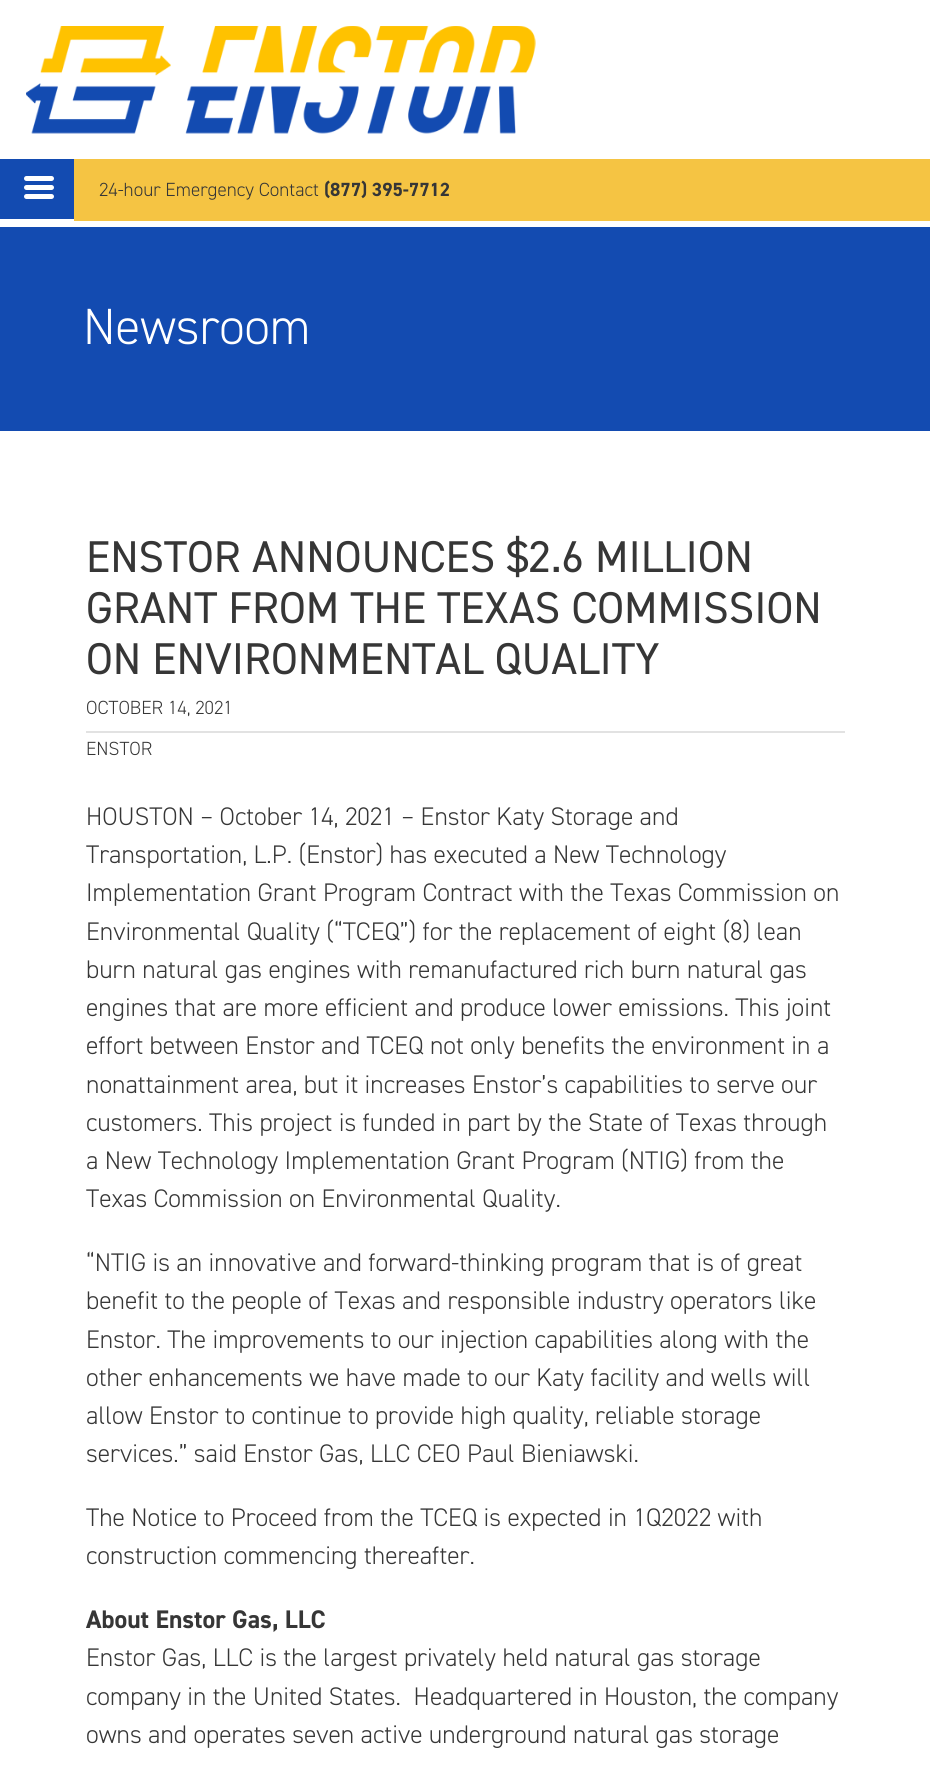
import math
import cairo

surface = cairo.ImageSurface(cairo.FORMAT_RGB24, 930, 1776)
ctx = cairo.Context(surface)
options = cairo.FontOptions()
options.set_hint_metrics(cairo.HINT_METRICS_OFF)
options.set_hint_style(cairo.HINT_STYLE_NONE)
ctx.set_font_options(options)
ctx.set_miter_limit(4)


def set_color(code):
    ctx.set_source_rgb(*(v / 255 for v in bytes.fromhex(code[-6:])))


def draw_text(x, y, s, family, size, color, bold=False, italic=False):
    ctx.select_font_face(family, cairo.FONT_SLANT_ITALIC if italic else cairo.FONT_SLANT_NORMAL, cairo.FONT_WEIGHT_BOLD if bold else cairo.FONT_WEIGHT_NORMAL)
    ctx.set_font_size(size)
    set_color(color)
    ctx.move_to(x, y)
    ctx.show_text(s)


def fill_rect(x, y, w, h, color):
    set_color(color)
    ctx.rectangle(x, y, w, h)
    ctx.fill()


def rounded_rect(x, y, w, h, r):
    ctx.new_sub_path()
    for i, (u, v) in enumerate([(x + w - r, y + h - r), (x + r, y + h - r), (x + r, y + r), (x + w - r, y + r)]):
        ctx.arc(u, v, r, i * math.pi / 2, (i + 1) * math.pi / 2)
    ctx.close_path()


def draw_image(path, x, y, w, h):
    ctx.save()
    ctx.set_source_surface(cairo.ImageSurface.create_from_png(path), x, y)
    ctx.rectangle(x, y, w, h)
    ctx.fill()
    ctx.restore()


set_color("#ffffff")
ctx.paint()
draw_image("assets/img1.png", 26, 26, 510, 108)
fill_rect(0, 159, 74, 60, "#134bb1")
set_color("#ffffff")
rounded_rect(24, 176, 30, 5, 2.5)
ctx.fill()
rounded_rect(24, 185, 30, 5, 2.5)
ctx.fill()
rounded_rect(24, 194, 30, 5, 2.5)
ctx.fill()
fill_rect(74, 159, 856, 62, "#f5c443")
draw_text(99, 196, "24-hour Emergency Contact", "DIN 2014 Light", 19.1, "#363636")
draw_text(324, 196, "(877) 395-7712", "DIN 2014", 19.1, "#363636", bold=True)
fill_rect(0, 227, 930, 204, "#134bb1")
draw_text(83, 344, "Newsroom", "DIN 2014 Light", 51, "#ffffff")
draw_text(86, 572, "ENSTOR ANNOUNCES $2.6 MILLION", "DIN 2014", 44.6, "#363636")
draw_text(86, 623, "GRANT FROM THE TEXAS COMMISSION", "DIN 2014", 44.6, "#363636")
draw_text(86, 674, "ON ENVIRONMENTAL QUALITY", "DIN 2014", 44.6, "#363636")
draw_text(86, 714, "OCTOBER 14, 2021", "DIN 2014 Light", 19.1, "#363636")
fill_rect(86, 731, 759, 2, "#e2e2e2")
draw_text(86, 755, "ENSTOR", "DIN 2014 Light", 19.1, "#363636")
draw_text(86, 825, "HOUSTON – October 14, 2021 – Enstor Katy Storage and", "DIN 2014 Light", 25.5, "#363636")
draw_text(86, 863, "Transportation, L.P. (Enstor) has executed a New Technology", "DIN 2014 Light", 25.5, "#363636")
draw_text(86, 901, "Implementation Grant Program Contract with the Texas Commission on", "DIN 2014 Light", 25.5, "#363636")
draw_text(86, 940, "Environmental Quality (“TCEQ”) for the replacement of eight (8) lean", "DIN 2014 Light", 25.5, "#363636")
draw_text(86, 978, "burn natural gas engines with remanufactured rich burn natural gas", "DIN 2014 Light", 25.5, "#363636")
draw_text(86, 1016, "engines that are more efficient and produce lower emissions. This joint", "DIN 2014 Light", 25.5, "#363636")
draw_text(86, 1054, "effort between Enstor and TCEQ not only benefits the environment in a", "DIN 2014 Light", 25.5, "#363636")
draw_text(86, 1093, "nonattainment area, but it increases Enstor’s capabilities to serve our", "DIN 2014 Light", 25.5, "#363636")
draw_text(86, 1131, "customers. This project is funded in part by the State of Texas through", "DIN 2014 Light", 25.5, "#363636")
draw_text(86, 1169, "a New Technology Implementation Grant Program (NTIG) from the", "DIN 2014 Light", 25.5, "#363636")
draw_text(86, 1207, "Texas Commission on Environmental Quality.", "DIN 2014 Light", 25.5, "#363636")
draw_text(86, 1271, "“NTIG is an innovative and forward-thinking program that is of great", "DIN 2014 Light", 25.5, "#363636")
draw_text(86, 1309, "benefit to the people of Texas and responsible industry operators like", "DIN 2014 Light", 25.5, "#363636")
draw_text(86, 1348, "Enstor. The improvements to our injection capabilities along with the", "DIN 2014 Light", 25.5, "#363636")
draw_text(86, 1386, "other enhancements we have made to our Katy facility and wells will", "DIN 2014 Light", 25.5, "#363636")
draw_text(86, 1424, "allow Enstor to continue to provide high quality, reliable storage", "DIN 2014 Light", 25.5, "#363636")
draw_text(86, 1462, "services.” said Enstor Gas, LLC CEO Paul Bieniawski.", "DIN 2014 Light", 25.5, "#363636")
draw_text(86, 1526, "The Notice to Proceed from the TCEQ is expected in 1Q2022 with", "DIN 2014 Light", 25.5, "#363636")
draw_text(86, 1564, "construction commencing thereafter.", "DIN 2014 Light", 25.5, "#363636")
draw_text(86, 1628, "About Enstor Gas, LLC", "DIN 2014", 25.5, "#363636", bold=True)
draw_text(86, 1666, "Enstor Gas, LLC is the largest privately held natural gas storage", "DIN 2014 Light", 25.5, "#363636")
draw_text(86, 1705, "company in the United States.  Headquartered in Houston, the company", "DIN 2014 Light", 25.5, "#363636")
draw_text(86, 1743, "owns and operates seven active underground natural gas storage", "DIN 2014 Light", 25.5, "#363636")
surface.write_to_png("output.png")
